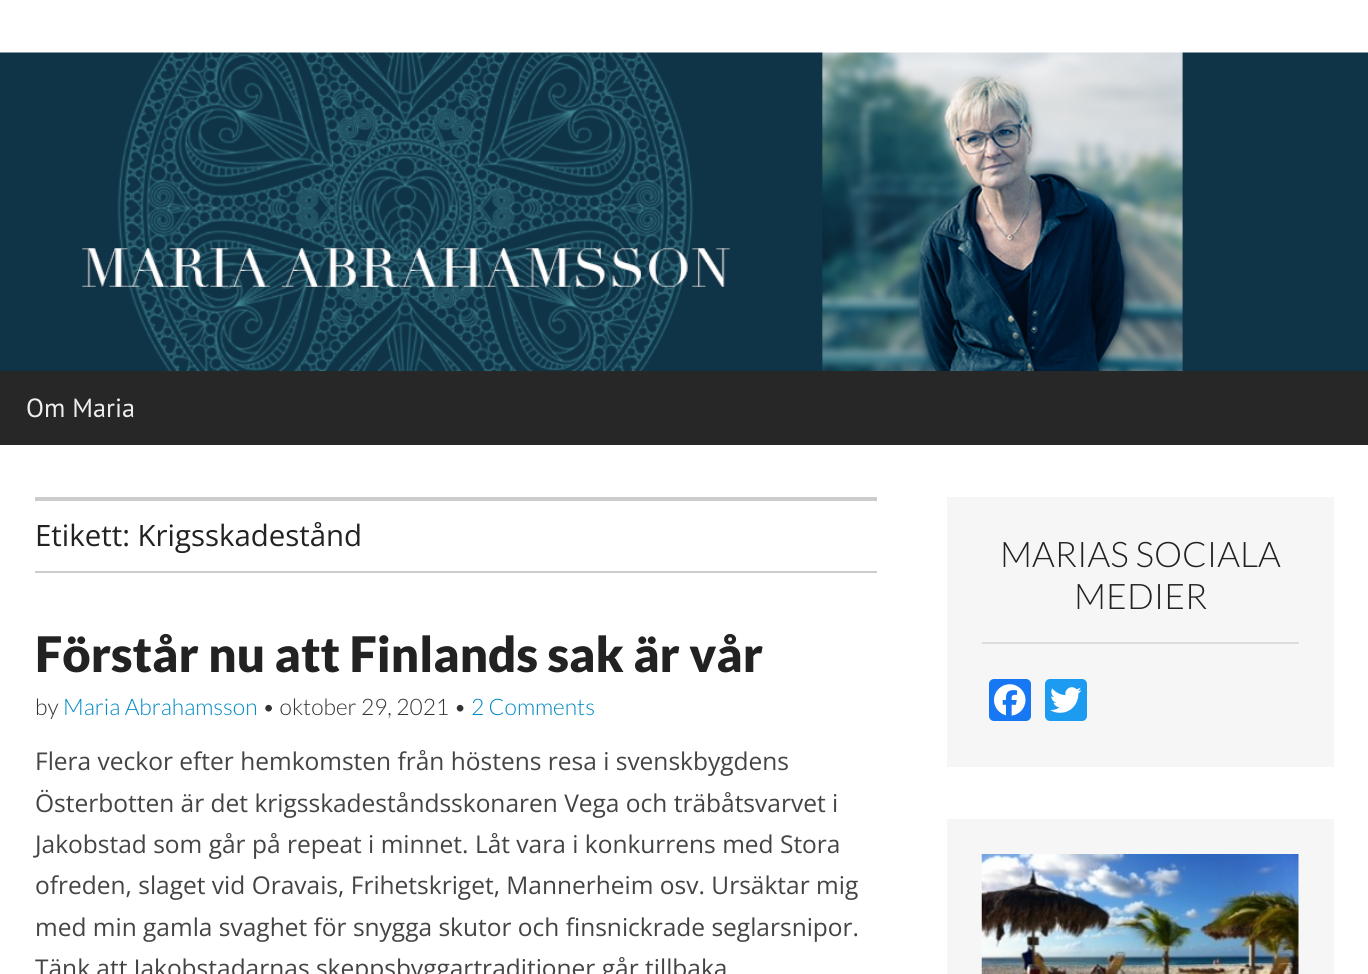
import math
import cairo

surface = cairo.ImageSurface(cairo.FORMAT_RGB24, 1368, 974)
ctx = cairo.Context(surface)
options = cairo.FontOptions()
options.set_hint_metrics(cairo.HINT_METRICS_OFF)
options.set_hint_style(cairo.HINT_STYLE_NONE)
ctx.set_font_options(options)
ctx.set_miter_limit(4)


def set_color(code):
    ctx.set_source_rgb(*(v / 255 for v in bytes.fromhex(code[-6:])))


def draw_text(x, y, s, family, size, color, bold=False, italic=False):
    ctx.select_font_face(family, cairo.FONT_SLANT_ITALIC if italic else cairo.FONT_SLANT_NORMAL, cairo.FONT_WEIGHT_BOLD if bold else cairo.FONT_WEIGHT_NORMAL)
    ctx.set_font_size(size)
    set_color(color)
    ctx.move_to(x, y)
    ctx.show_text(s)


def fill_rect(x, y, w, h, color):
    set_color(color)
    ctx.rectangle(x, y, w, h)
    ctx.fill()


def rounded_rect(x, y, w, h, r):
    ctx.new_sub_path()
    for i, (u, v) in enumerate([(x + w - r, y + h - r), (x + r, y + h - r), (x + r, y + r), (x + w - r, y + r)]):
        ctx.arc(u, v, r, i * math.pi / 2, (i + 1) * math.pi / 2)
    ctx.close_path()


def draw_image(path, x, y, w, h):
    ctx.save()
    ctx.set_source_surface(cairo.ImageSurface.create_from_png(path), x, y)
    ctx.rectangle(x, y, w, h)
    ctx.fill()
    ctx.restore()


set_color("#ffffff")
ctx.paint()
draw_image("assets/img1.png", 0, 52, 1368, 319)
fill_rect(0, 371, 1368, 74, "#272727")
draw_text(26, 417, "Om Maria", "PT Sans", 26.25, "#eeeeee")
fill_rect(35, 497, 842, 4, "#cccccc")
fill_rect(35, 571, 842, 2, "#cccccc")
draw_text(35, 546, "Etikett: Krigsskadestånd", "Open Sans", 29.4, "#222222")
draw_text(35, 672, "Förstår nu att Finlands sak är vår", "Lato Black", 49, "#222222")
draw_text(35, 715, "by", "Lato Light", 22.75, "#333333")
draw_text(63, 715, "Maria Abrahamsson", "Lato Light", 22.75, "#0089c4")
draw_text(262, 715, "• oktober 29, 2021 •", "Lato Light", 22.75, "#333333")
draw_text(471, 715, "2 Comments", "Lato Light", 22.75, "#0089c4")
draw_text(35, 770, "Flera veckor efter hemkomsten från höstens resa i svenskbygdens", "Open Sans", 24.5, "#444444")
draw_text(35, 812, "Österbotten är det krigsskadeståndsskonaren Vega och träbåtsvarvet i", "Open Sans", 24.5, "#444444")
draw_text(35, 853, "Jakobstad som går på repeat i minnet. Låt vara i konkurrens med Stora", "Open Sans", 24.5, "#444444")
draw_text(35, 894, "ofreden, slaget vid Oravais, Frihetskriget, Mannerheim osv. Ursäktar mig", "Open Sans", 24.5, "#444444")
draw_text(35, 936, "med min gamla svaghet för snygga skutor och finsnickrade seglarsnipor.", "Open Sans", 24.5, "#444444")
draw_text(35, 977, "Tänk att Jakobstadarnas skeppsbyggartraditioner går tillbaka", "Open Sans", 24.5, "#444444")
fill_rect(947, 497, 387, 270, "#f6f6f6")
fill_rect(982, 642, 317, 2, "#dddddd")
draw_text(1000, 567, "MARIAS SOCIALA", "Lato Light", 35.25, "#222222")
draw_text(1074, 609, "MEDIER", "Lato Light", 35.25, "#222222")
set_color("#1877f2")
rounded_rect(989, 679, 42, 42, 5)
ctx.fill()
draw_image("assets/img2.png", 994, 684, 32, 32)
set_color("#1d9bf0")
rounded_rect(1045, 679, 42, 42, 5)
ctx.fill()
draw_image("assets/img3.png", 1050, 687, 32, 26)
fill_rect(947, 819, 387, 155, "#f6f6f6")
draw_image("assets/img4.png", 981, 854, 318, 120)
surface.write_to_png("output.png")
